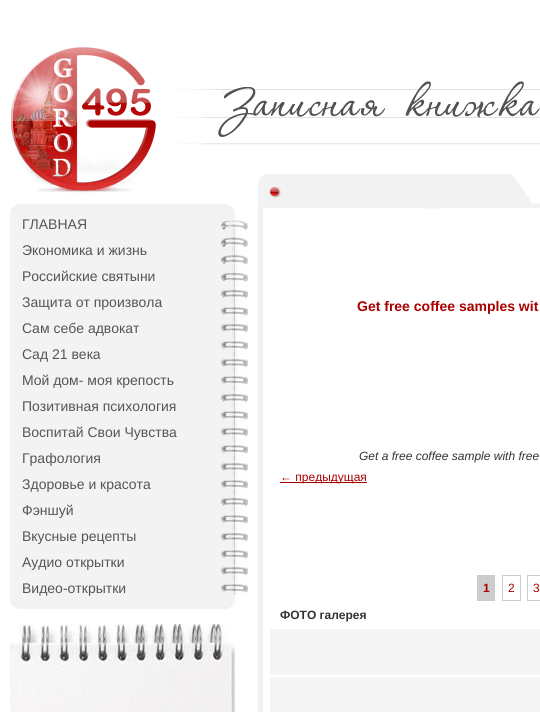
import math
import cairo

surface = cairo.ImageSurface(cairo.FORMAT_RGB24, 540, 712)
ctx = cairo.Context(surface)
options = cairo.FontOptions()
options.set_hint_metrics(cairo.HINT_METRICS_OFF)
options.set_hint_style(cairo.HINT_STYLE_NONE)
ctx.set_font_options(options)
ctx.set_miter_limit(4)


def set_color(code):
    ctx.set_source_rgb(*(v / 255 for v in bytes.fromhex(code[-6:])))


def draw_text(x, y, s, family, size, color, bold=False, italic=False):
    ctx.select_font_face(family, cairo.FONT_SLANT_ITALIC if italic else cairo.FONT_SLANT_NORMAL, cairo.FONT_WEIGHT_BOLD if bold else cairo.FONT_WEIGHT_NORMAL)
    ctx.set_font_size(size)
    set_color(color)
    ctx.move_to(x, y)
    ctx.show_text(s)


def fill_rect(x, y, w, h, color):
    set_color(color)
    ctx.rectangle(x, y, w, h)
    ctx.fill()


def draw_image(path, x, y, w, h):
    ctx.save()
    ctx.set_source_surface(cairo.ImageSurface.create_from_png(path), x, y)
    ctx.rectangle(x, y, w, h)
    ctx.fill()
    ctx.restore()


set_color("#ffffff")
ctx.paint()
draw_image("assets/img1.png", 172, 81, 368, 64)
draw_image("assets/img2.png", 11, 47, 145, 147)
fill_rect(10, 211, 225, 391, "#f3f3f3")
draw_image("assets/img3.png", 10, 204, 225, 7)
draw_image("assets/img4.png", 10, 602, 225, 7)
draw_text(22, 229, "ГЛАВНАЯ", "Liberation Sans", 14, "#555555")
draw_text(22, 255, "Экономика и жизнь", "Liberation Sans", 14, "#555555")
draw_text(22, 281, "Российские святыни", "Liberation Sans", 14, "#555555")
draw_text(22, 307, "Защита от произвола", "Liberation Sans", 14, "#555555")
draw_text(22, 333, "Сам себе адвокат", "Liberation Sans", 14, "#555555")
draw_text(22, 359, "Сад 21 века", "Liberation Sans", 14, "#555555")
draw_text(22, 385, "Мой дом- моя крепость", "Liberation Sans", 14, "#555555")
draw_text(22, 411, "Позитивная психология", "Liberation Sans", 14, "#555555")
draw_text(22, 437, "Воспитай Свои Чувства", "Liberation Sans", 14, "#555555")
draw_text(22, 463, "Графология", "Liberation Sans", 14, "#555555")
draw_text(22, 489, "Здоровье и красота", "Liberation Sans", 14, "#555555")
draw_text(22, 515, "Фэншуй", "Liberation Sans", 14, "#555555")
draw_text(22, 541, "Вкусные рецепты", "Liberation Sans", 14, "#555555")
draw_text(22, 567, "Аудио открытки", "Liberation Sans", 14, "#555555")
draw_text(22, 593, "Видео-открытки", "Liberation Sans", 14, "#555555")
draw_image("assets/img5.png", 221, 220, 27, 375)
draw_image("assets/img6.png", 10, 624, 225, 88)
draw_image("assets/img7.png", 258, 174, 219, 30)
draw_image("assets/img8.png", 477, 174, 63, 30)
draw_image("assets/img9.png", 258, 204, 282, 508)
draw_text(357, 311, "Get free coffee samples wit", "Liberation Sans", 14, "#aa0000", bold=True)
draw_text(359, 460, "Get a free coffee sample with free", "Liberation Sans", 12, "#333333", italic=True)
fill_rect(280, 482, 87, 1, "#aa0000")
draw_text(280, 481, "← предыдущая", "Liberation Sans", 12, "#aa0000")
fill_rect(477, 575, 18, 26, "#cccccc")
draw_text(483, 592, "1", "Liberation Sans", 12, "#aa0000", bold=True)
ctx.rectangle(502.5, 575.5, 18, 25)
set_color("#cccccc")
ctx.set_line_width(1)
ctx.stroke()
draw_text(508, 592, "2", "Liberation Sans", 12, "#aa0000")
ctx.rectangle(527.5, 575.5, 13, 25)
set_color("#cccccc")
ctx.stroke()
draw_text(533, 592, "3", "Liberation Sans", 12, "#aa0000")
draw_text(280, 619, "ФОТО галерея", "Liberation Sans", 12, "#333333", bold=True)
fill_rect(270, 629, 270, 46, "#f5f5f5")
fill_rect(270, 677, 270, 35, "#f5f5f5")
surface.write_to_png("output.png")
